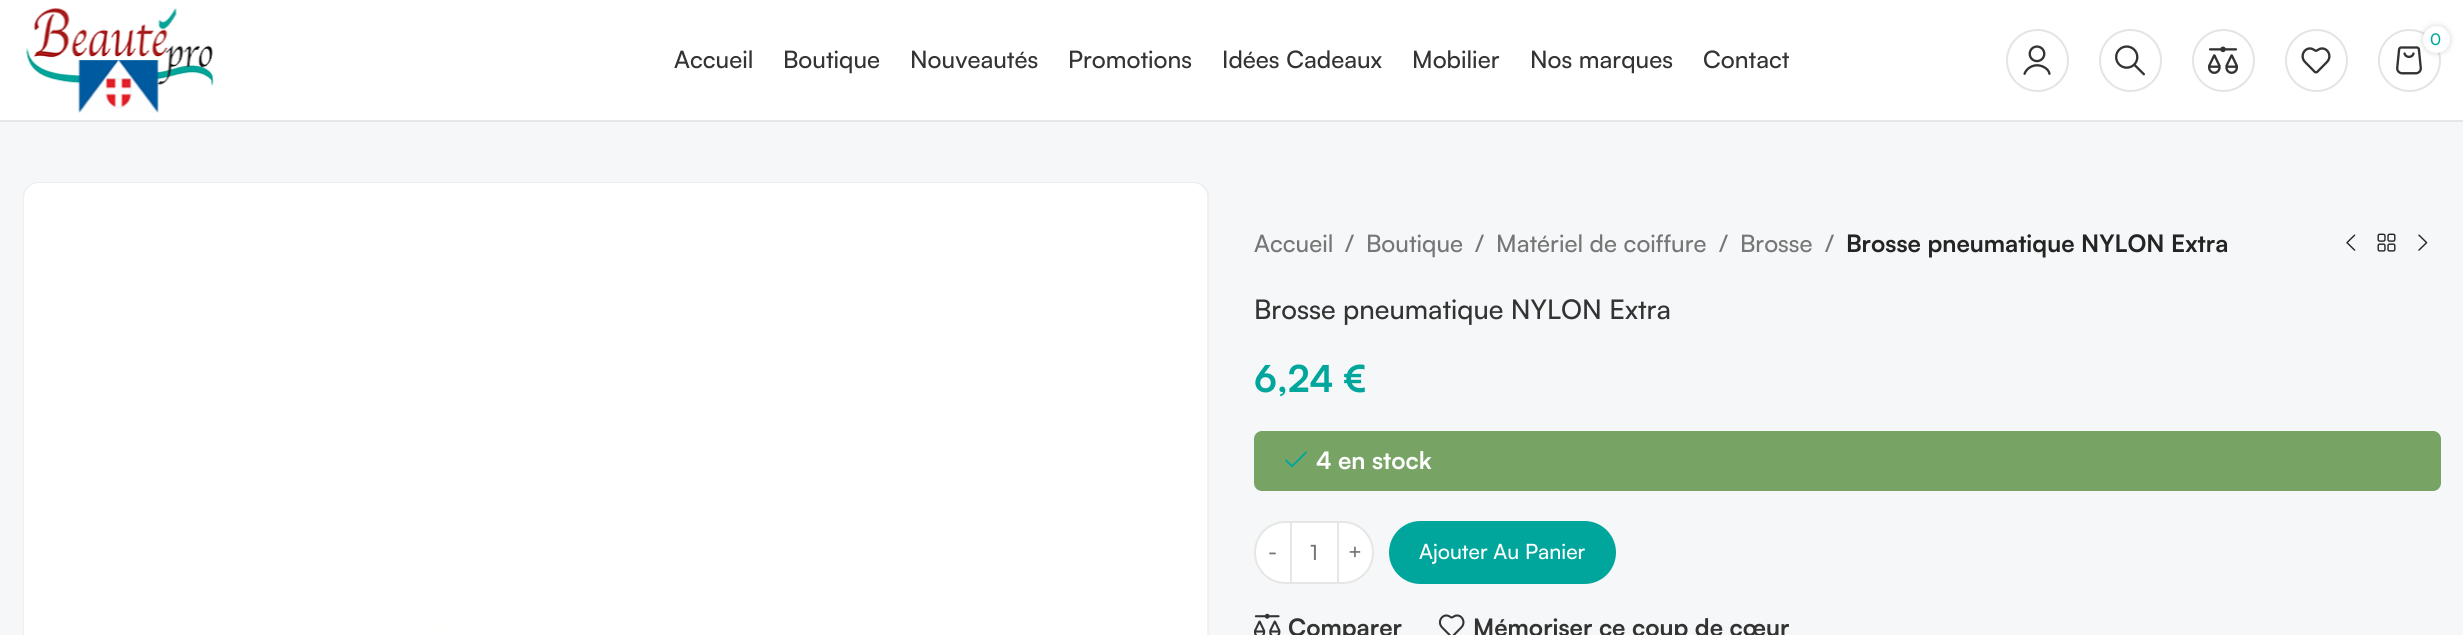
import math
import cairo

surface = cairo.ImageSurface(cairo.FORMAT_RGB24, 2463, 635)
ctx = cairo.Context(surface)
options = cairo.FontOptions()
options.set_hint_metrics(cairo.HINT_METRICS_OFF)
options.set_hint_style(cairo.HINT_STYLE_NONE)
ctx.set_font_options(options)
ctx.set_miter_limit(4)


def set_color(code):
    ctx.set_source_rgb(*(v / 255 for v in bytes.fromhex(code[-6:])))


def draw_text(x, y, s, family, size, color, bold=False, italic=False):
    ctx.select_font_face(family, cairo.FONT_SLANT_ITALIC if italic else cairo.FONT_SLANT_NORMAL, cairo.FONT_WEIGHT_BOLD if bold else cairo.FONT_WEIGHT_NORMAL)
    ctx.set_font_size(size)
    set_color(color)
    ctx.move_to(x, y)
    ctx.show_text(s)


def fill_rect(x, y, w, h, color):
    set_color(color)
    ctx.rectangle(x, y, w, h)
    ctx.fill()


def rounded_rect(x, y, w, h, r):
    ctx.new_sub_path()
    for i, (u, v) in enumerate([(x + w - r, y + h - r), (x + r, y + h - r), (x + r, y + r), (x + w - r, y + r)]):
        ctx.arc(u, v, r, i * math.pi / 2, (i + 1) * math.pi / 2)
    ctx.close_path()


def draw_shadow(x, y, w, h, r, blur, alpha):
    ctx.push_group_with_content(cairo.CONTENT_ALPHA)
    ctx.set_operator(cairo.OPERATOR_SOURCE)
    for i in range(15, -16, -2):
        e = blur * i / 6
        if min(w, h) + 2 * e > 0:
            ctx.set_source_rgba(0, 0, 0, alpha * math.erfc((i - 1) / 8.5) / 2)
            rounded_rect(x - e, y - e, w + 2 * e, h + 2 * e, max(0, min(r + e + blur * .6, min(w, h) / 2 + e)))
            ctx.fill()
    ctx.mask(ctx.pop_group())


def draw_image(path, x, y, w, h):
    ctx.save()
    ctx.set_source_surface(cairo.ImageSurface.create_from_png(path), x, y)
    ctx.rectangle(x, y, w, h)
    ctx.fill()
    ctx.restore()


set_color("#ffffff")
ctx.paint()
fill_rect(0, 120, 2463, 2, "#e6e6e6")
draw_image("assets/img1.png", 26, 7, 188, 106)
ctx.arc(2037.5, 60.5, 30.5, 0, 2 * math.pi)
set_color("#e4e4e4")
ctx.stroke()
draw_image("assets/img2.png", 2023, 45, 28, 30)
ctx.arc(2130.5, 60.5, 30.5, 0, 2 * math.pi)
ctx.stroke()
draw_image("assets/img3.png", 2115, 45, 30, 31)
ctx.arc(2223.5, 60.5, 30.5, 0, 2 * math.pi)
ctx.stroke()
draw_image("assets/img4.png", 2208, 46, 30, 28)
ctx.arc(2316.5, 60.5, 30.5, 0, 2 * math.pi)
ctx.stroke()
draw_image("assets/img5.png", 2301, 47, 30, 27)
ctx.arc(2409.5, 60.5, 30.5, 0, 2 * math.pi)
ctx.stroke()
draw_image("assets/img6.png", 2396, 46, 26, 29)
set_color("#000000")
draw_shadow(2423, 26, 27, 27, 13.5, 3, 0.17)
set_color("#ffffff")
ctx.arc(2436.5, 39.5, 13.5, 0, 2 * math.pi)
ctx.fill()
draw_text(2430, 45, "0", "Satoshi Medium", 16, "#00a69b")
draw_text(674, 68, "Accueil", "Satoshi Medium", 24, "#333333")
draw_text(783, 68, "Boutique", "Satoshi Medium", 24, "#333333")
draw_text(910, 68, "Nouveautés", "Satoshi Medium", 24, "#333333")
draw_text(1068, 68, "Promotions", "Satoshi Medium", 24, "#333333")
draw_text(1222, 68, "Idées Cadeaux", "Satoshi Medium", 24, "#333333")
draw_text(1412, 68, "Mobilier", "Satoshi Medium", 24, "#333333")
draw_text(1530, 68, "Nos marques", "Satoshi Medium", 24, "#333333")
draw_text(1703, 68, "Contact", "Satoshi Medium", 24, "#333333")
fill_rect(0, 122, 2463, 513, "#f5f7f8")
rounded_rect(24, 183, 1184, 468, 14)
set_color("#eeeeee")
ctx.stroke()
draw_image("assets/img7.png", 24, 183, 1184, 452)
draw_text(1254, 252, "Accueil", "Satoshi Medium", 24, "#767676")
draw_text(1345, 252, "/", "Satoshi Medium", 24, "#767676")
draw_text(1366, 252, "Boutique", "Satoshi Medium", 24, "#767676")
draw_text(1475, 252, "/", "Satoshi Medium", 24, "#767676")
draw_text(1496, 252, "Matériel de coiffure", "Satoshi Medium", 24, "#767676")
draw_text(1719, 252, "/", "Satoshi Medium", 24, "#767676")
draw_text(1740, 252, "Brosse", "Satoshi Medium", 24, "#767676")
draw_text(1825, 252, "/", "Satoshi Medium", 24, "#767676")
draw_text(1846, 252, "Brosse pneumatique NYLON Extra", "Satoshi", 24, "#242424", bold=True)
draw_image("assets/img8.png", 2346, 234, 10, 17)
draw_image("assets/img9.png", 2377, 233, 19, 19)
draw_image("assets/img10.png", 2418, 234, 10, 17)
draw_text(1254, 319, "Brosse pneumatique NYLON Extra", "Satoshi Medium", 27, "#333333")
draw_text(1254, 392, "6,24 €", "Satoshi", 37, "#00a69b", bold=True)
set_color("#77a464")
rounded_rect(1254, 431, 1187, 60, 8)
ctx.fill()
draw_image("assets/img11.png", 1285, 451, 22, 17)
draw_text(1316, 469, "4 en stock", "Satoshi", 24, "#ffffff", bold=True)
ctx.new_path()
ctx.move_to(1285.5, 521)
ctx.line_to(1292, 521)
ctx.line_to(1292, 584)
ctx.line_to(1285.5, 584)
ctx.curve_to(1268, 584, 1254, 570, 1254, 552.5)
ctx.curve_to(1254, 535, 1268, 521, 1285.5, 521)
ctx.close_path()
ctx.fill()
ctx.new_path()
ctx.move_to(1285.5, 522)
ctx.line_to(1291, 522)
ctx.line_to(1291, 583)
ctx.line_to(1285.5, 583)
ctx.curve_to(1268.5, 583, 1255, 569.5, 1255, 552.5)
ctx.curve_to(1255, 535.5, 1268.5, 522, 1285.5, 522)
ctx.close_path()
ctx.set_source_rgba(0, 0, 0, 0.1)
ctx.stroke()
draw_text(1268, 559, "-", "Satoshi Medium", 21, "#767676")
fill_rect(1292, 523, 45, 59, "#ffffff")
fill_rect(1292, 521, 45, 2, "#e6e6e6")
fill_rect(1292, 582, 45, 2, "#e6e6e6")
draw_text(1310, 560, "1", "Satoshi Medium", 21, "#767676")
set_color("#ffffff")
ctx.new_path()
ctx.move_to(1337, 521)
ctx.line_to(1342.5, 521)
ctx.curve_to(1360, 521, 1374, 535, 1374, 552.5)
ctx.curve_to(1374, 570, 1360, 584, 1342.5, 584)
ctx.line_to(1337, 584)
ctx.close_path()
ctx.fill()
ctx.new_path()
ctx.move_to(1338, 522)
ctx.line_to(1342.5, 522)
ctx.curve_to(1359.5, 522, 1373, 535.5, 1373, 552.5)
ctx.curve_to(1373, 569.5, 1359.5, 583, 1342.5, 583)
ctx.line_to(1338, 583)
ctx.close_path()
ctx.set_source_rgba(0, 0, 0, 0.1)
ctx.stroke()
draw_text(1348, 559, "+", "Satoshi Medium", 21, "#767676")
set_color("#00a69b")
rounded_rect(1389, 521, 227, 63, 31.5)
ctx.fill()
draw_text(1419, 559, "Ajouter Au Panier", "Satoshi Medium", 21, "#ffffff")
draw_image("assets/img12.png", 1254, 613, 27, 22)
draw_text(1288, 636, "Comparer", "Satoshi", 24, "#333333", bold=True)
draw_image("assets/img13.png", 1438, 614, 27, 21)
draw_text(1473, 636, "Mémoriser ce coup de cœur", "Satoshi", 24, "#333333", bold=True)
surface.write_to_png("output.png")
